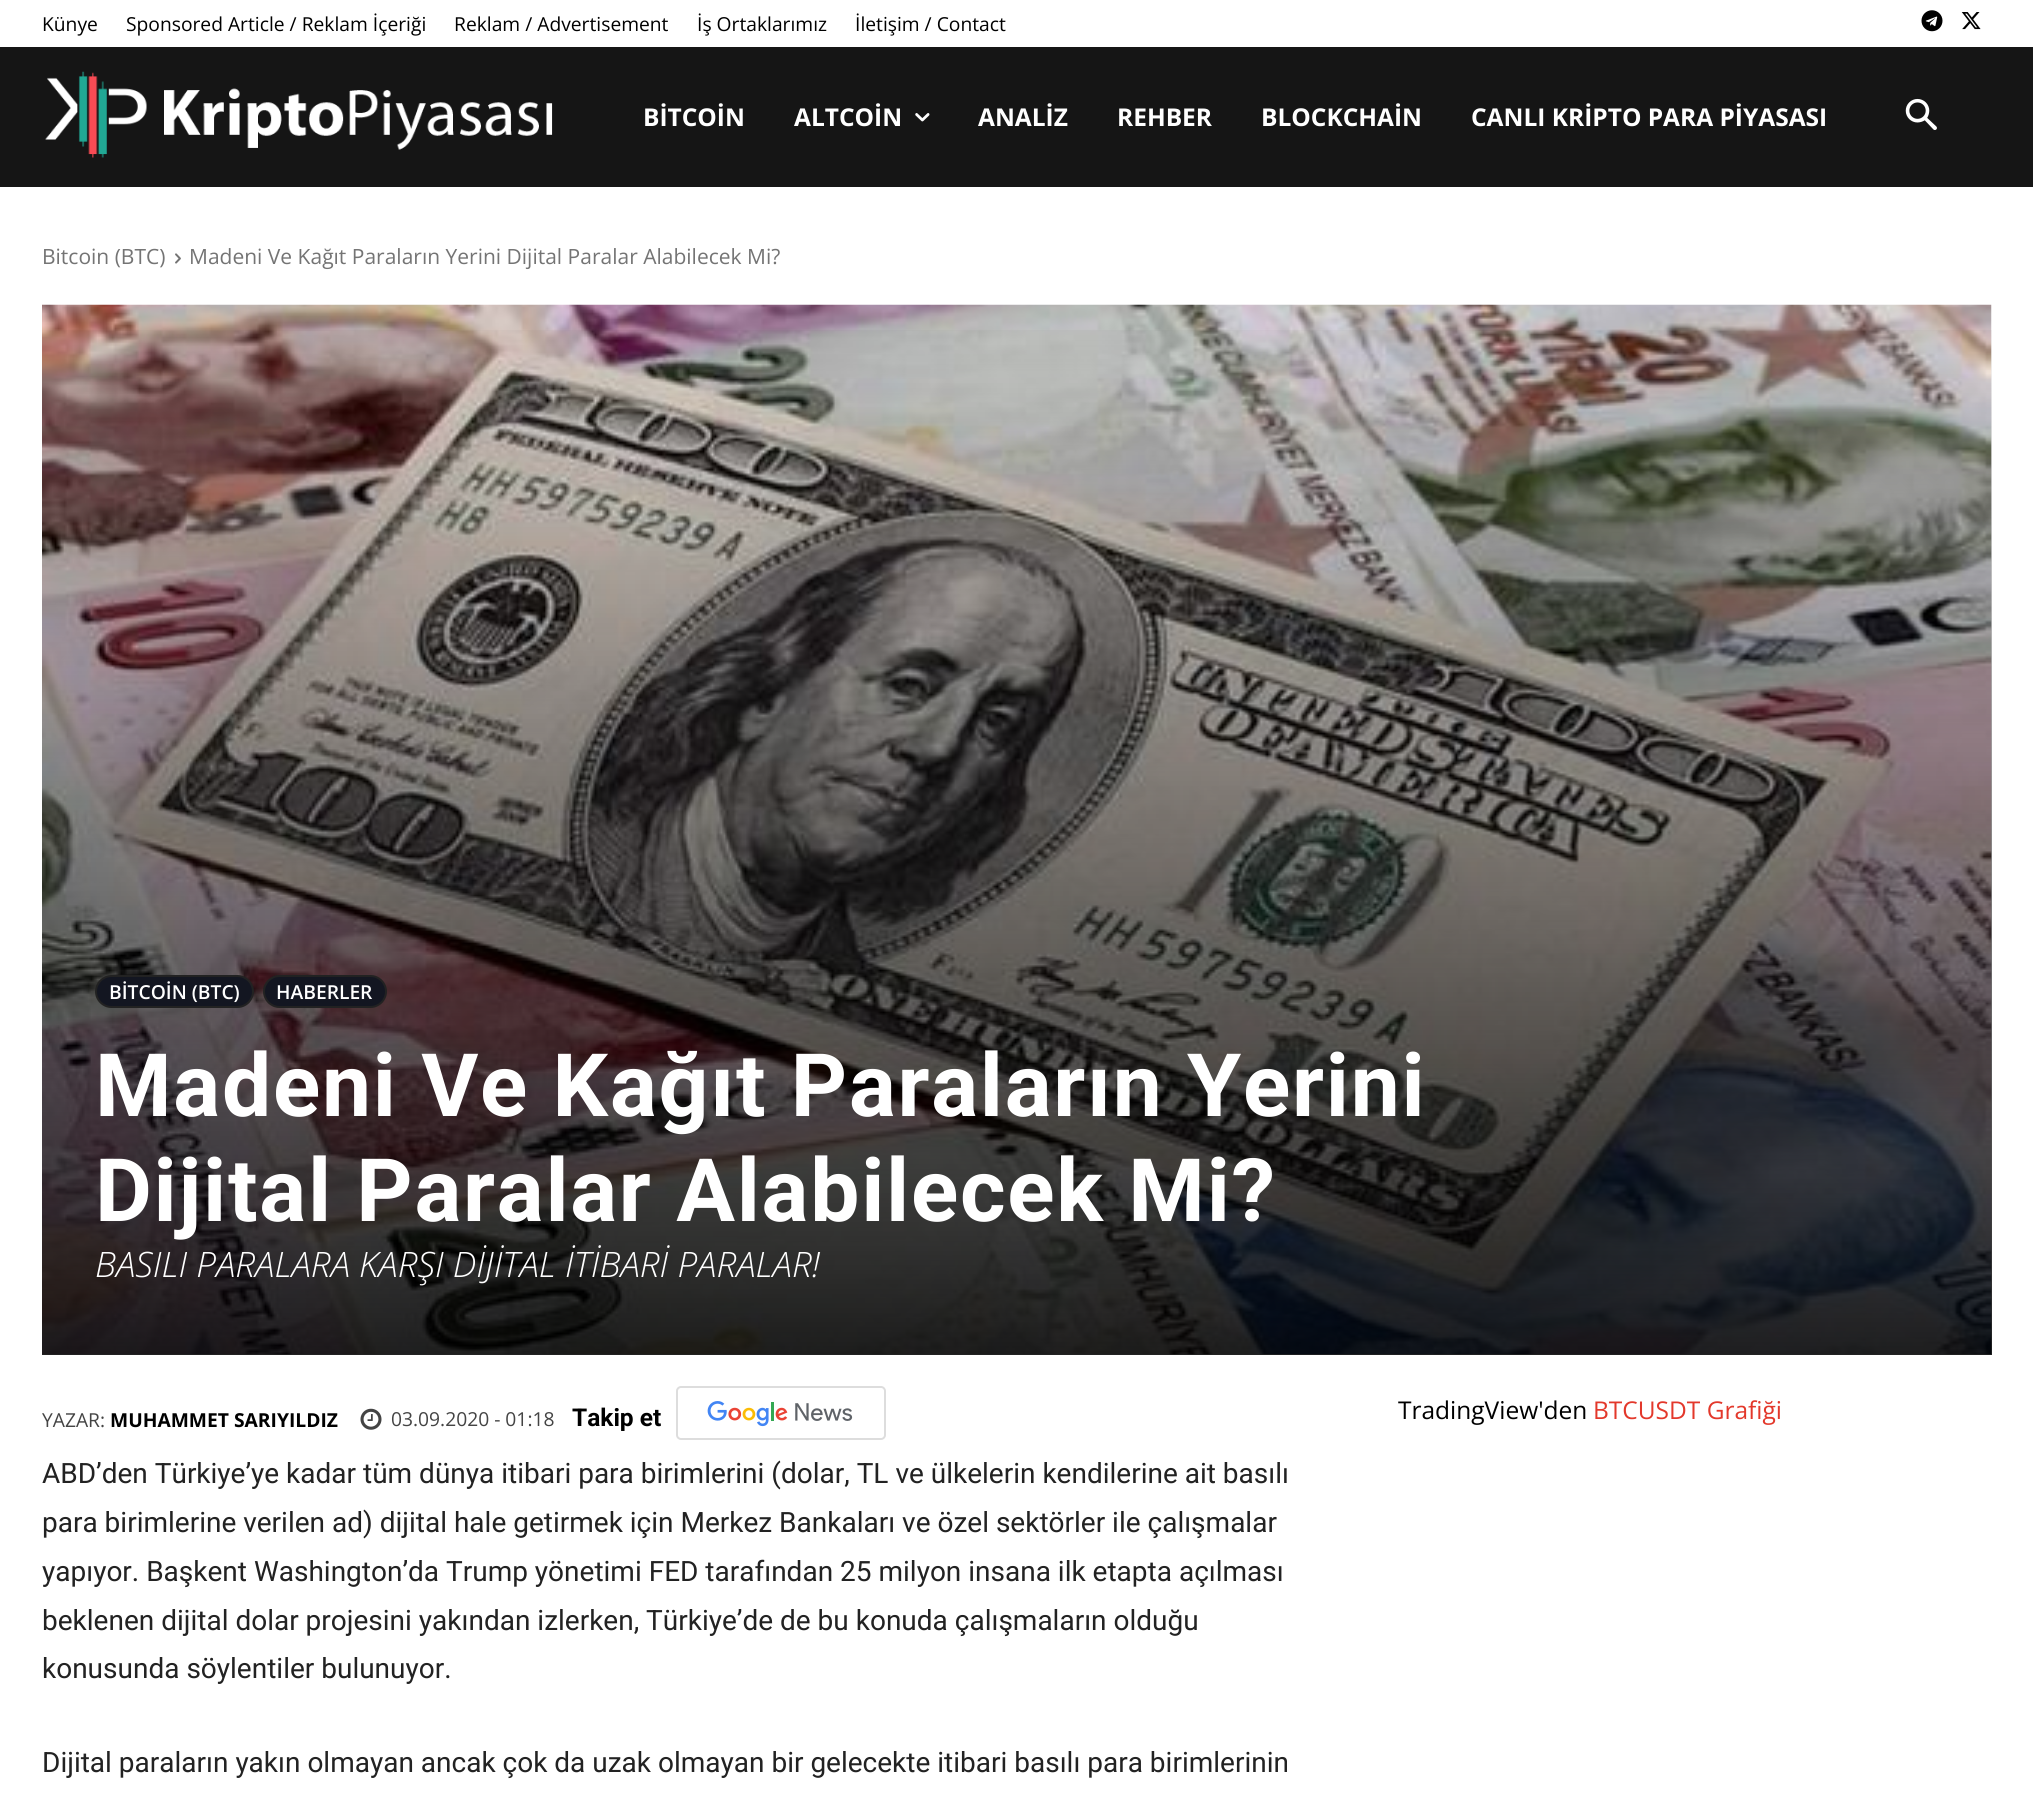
import math
import cairo

surface = cairo.ImageSurface(cairo.FORMAT_RGB24, 2033, 1797)
ctx = cairo.Context(surface)
options = cairo.FontOptions()
options.set_hint_metrics(cairo.HINT_METRICS_OFF)
options.set_hint_style(cairo.HINT_STYLE_NONE)
ctx.set_font_options(options)
ctx.set_miter_limit(4)


def set_color(code):
    ctx.set_source_rgb(*(v / 255 for v in bytes.fromhex(code[-6:])))


def draw_text(x, y, s, family, size, color, bold=False, italic=False):
    ctx.select_font_face(family, cairo.FONT_SLANT_ITALIC if italic else cairo.FONT_SLANT_NORMAL, cairo.FONT_WEIGHT_BOLD if bold else cairo.FONT_WEIGHT_NORMAL)
    ctx.set_font_size(size)
    set_color(color)
    ctx.move_to(x, y)
    ctx.show_text(s)


def draw_spaced(x, y, s, letter, word):
    ctx.move_to(x, y)
    for ch in s:
        ctx.show_text(ch)
        ctx.rel_move_to(letter + word * (ch == ' '), 0)


def fill_rect(x, y, w, h, color):
    set_color(color)
    ctx.rectangle(x, y, w, h)
    ctx.fill()


def rounded_rect(x, y, w, h, r):
    ctx.new_sub_path()
    for i, (u, v) in enumerate([(x + w - r, y + h - r), (x + r, y + h - r), (x + r, y + r), (x + w - r, y + r)]):
        ctx.arc(u, v, r, i * math.pi / 2, (i + 1) * math.pi / 2)
    ctx.close_path()


def draw_image(path, x, y, w, h):
    ctx.save()
    ctx.set_source_surface(cairo.ImageSurface.create_from_png(path), x, y)
    ctx.rectangle(x, y, w, h)
    ctx.fill()
    ctx.restore()


set_color("#ffffff")
ctx.paint()
draw_text(42, 31, "Künye", "Open Sans", 19.25, "#000000")
draw_text(126, 31, "Sponsored Article / Reklam İçeriği", "Open Sans", 19.25, "#000000")
draw_text(454, 31, "Reklam / Advertisement", "Open Sans", 19.25, "#000000")
draw_text(697, 31, "İş Ortaklarımız", "Open Sans", 19.25, "#000000")
draw_text(855, 31, "İletişim / Contact", "Open Sans", 19.25, "#000000")
draw_image("assets/img1.png", 1921, 10, 22, 22)
draw_image("assets/img2.png", 1961, 12, 20, 18)
fill_rect(0, 47, 2033, 140, "#151515")
draw_image("assets/img3.png", 45, 71, 508, 87)
draw_text(643, 126, "BİTCOİN", "Open Sans", 24.5, "#ffffff", bold=True)
draw_text(794, 126, "ALTCOİN", "Open Sans", 24.5, "#ffffff", bold=True)
draw_image("assets/img4.png", 915, 113, 15, 9)
draw_text(978, 126, "ANALİZ", "Open Sans", 24.5, "#ffffff", bold=True)
draw_text(1117, 126, "REHBER", "Open Sans", 24.5, "#ffffff", bold=True)
draw_text(1261, 126, "BLOCKCHAİN", "Open Sans", 24.5, "#ffffff", bold=True)
draw_text(1471, 126, "CANLI KRİPTO PARA PİYASASI", "Open Sans", 24.5, "#ffffff", bold=True)
draw_image("assets/img5.png", 1905, 98, 32, 32)
draw_text(42, 264, "Bitcoin (BTC)", "Open Sans", 21, "#747474")
draw_image("assets/img6.png", 175, 253, 6, 11)
draw_text(189, 264, "Madeni Ve Kağıt Paraların Yerini Dijital Paralar Alabilecek Mi?", "Open Sans", 21, "#747474")
draw_image("assets/img7.png", 42, 304, 1950, 1051)
gradient = cairo.LinearGradient(1017, 304, 1017, 1355)
gradient.add_color_stop_rgba(0, 0, 0, 0, 0)
gradient.add_color_stop_rgba(1, 0, 0, 0, 0.86)
ctx.set_source(gradient)
ctx.rectangle(42, 330, 1950, 1025)
ctx.fill()
set_color("#131621")
rounded_rect(96, 976, 157, 31, 15.5)
ctx.fill_preserve()
set_color("#222222")
ctx.stroke()
draw_text(109, 999, "BİTCOİN (BTC)", "Open Sans SemiBold", 19.25, "#ffffff")
set_color("#131621")
rounded_rect(264, 976, 122, 31, 15.5)
ctx.fill_preserve()
set_color("#222222")
ctx.stroke()
draw_text(276, 999, "HABERLER", "Open Sans SemiBold", 19.25, "#ffffff")
ctx.select_font_face("Roboto", cairo.FONT_SLANT_NORMAL, cairo.FONT_WEIGHT_BOLD)
ctx.set_font_size(87.5)
draw_spaced(95, 1116, "Madeni Ve Kağıt Paraların Yerini", 1.75, 0)
draw_spaced(95, 1221, "Dijital Paralar Alabilecek Mi?", 1.75, 0)
draw_text(95, 1277, "BASILI PARALARA KARŞI DİJİTAL İTİBARİ PARALAR!", "Open Sans Light", 35, "#ffffff", italic=True)
draw_text(42, 1427, "YAZAR:", "Open Sans", 19.25, "#444444")
draw_text(110, 1427, "MUHAMMET SARIYILDIZ", "Open Sans", 19.25, "#000000", bold=True)
draw_image("assets/img8.png", 360, 1408, 22, 22)
draw_text(391, 1426, "03.09.2020 - 01:18", "Open Sans", 19.25, "#444444")
draw_text(572, 1426, "Takip et", "Roboto", 24.5, "#000000", bold=True)
rounded_rect(677, 1387, 208, 52, 4)
set_color("#dddddd")
ctx.stroke()
draw_image("assets/img9.png", 707, 1401, 146, 26)
draw_text(42, 1483, "ABD’den Türkiye’ye kadar tüm dünya itibari para birimlerini (dolar, TL ve ülkelerin kendilerine ait basılı", "Roboto", 28, "#222222")
draw_text(42, 1532, "para birimlerine verilen ad) dijital hale getirmek için Merkez Bankaları ve özel sektörler ile çalışmalar", "Roboto", 28, "#222222")
draw_text(42, 1581, "yapıyor. Başkent Washington’da Trump yönetimi FED tarafından 25 milyon insana ilk etapta açılması", "Roboto", 28, "#222222")
draw_text(42, 1630, "beklenen dijital dolar projesini yakından izlerken, Türkiye’de de bu konuda çalışmaların olduğu", "Roboto", 28, "#222222")
draw_text(42, 1678, "konusunda söylentiler bulunuyor.", "Roboto", 28, "#222222")
draw_text(42, 1772, "Dijital paraların yakın olmayan ancak çok da uzak olmayan bir gelecekte itibari basılı para birimlerinin", "Roboto", 28, "#222222")
draw_text(1398, 1419, "TradingView'den", "Open Sans", 24.5, "#000000")
draw_text(1593, 1419, "BTCUSDT Grafiği", "Open Sans", 24.5, "#e3382b")
surface.write_to_png("output.png")
